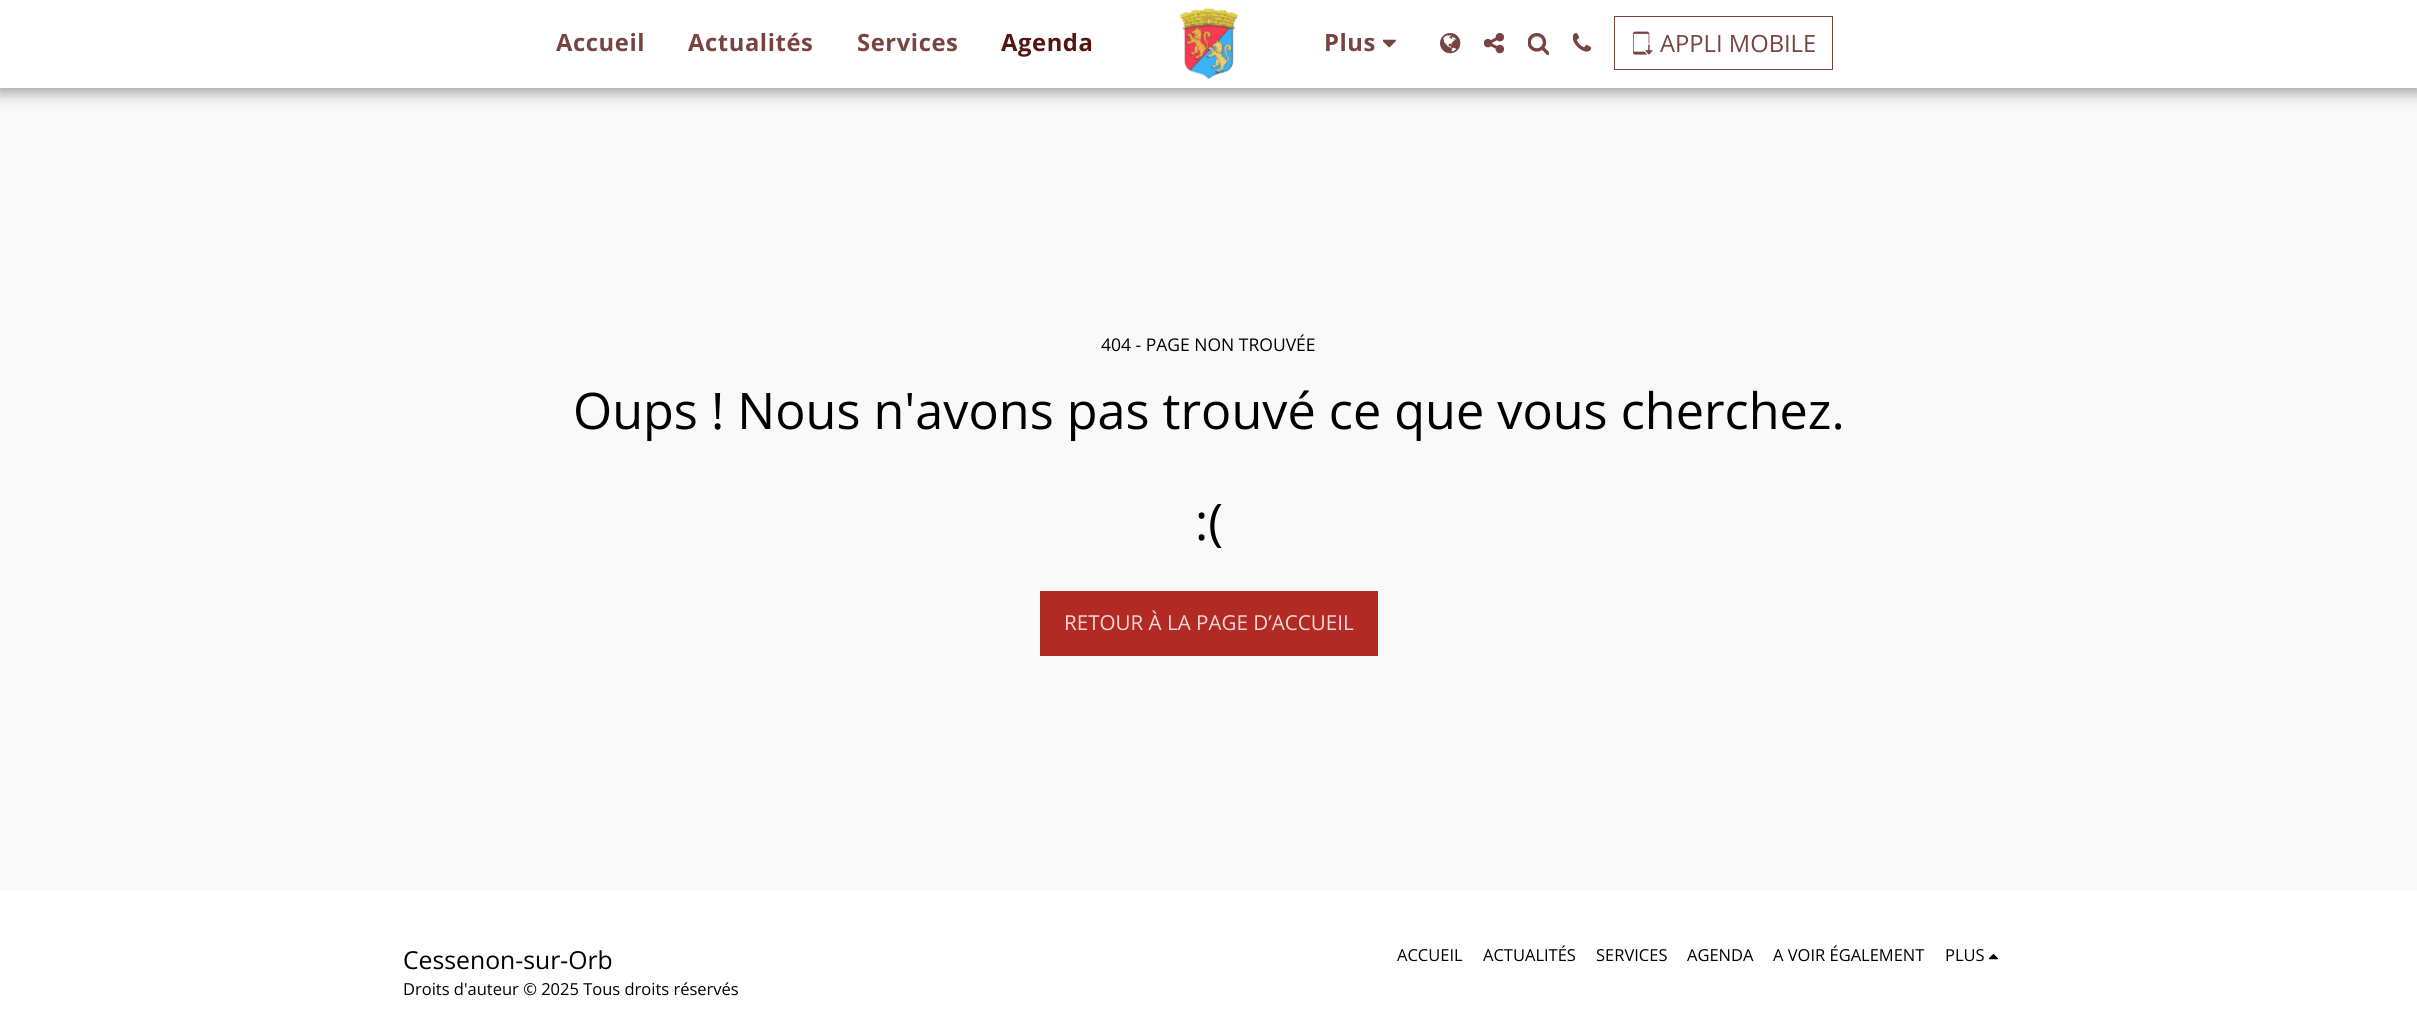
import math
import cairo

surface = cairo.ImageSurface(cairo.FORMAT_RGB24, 2417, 1017)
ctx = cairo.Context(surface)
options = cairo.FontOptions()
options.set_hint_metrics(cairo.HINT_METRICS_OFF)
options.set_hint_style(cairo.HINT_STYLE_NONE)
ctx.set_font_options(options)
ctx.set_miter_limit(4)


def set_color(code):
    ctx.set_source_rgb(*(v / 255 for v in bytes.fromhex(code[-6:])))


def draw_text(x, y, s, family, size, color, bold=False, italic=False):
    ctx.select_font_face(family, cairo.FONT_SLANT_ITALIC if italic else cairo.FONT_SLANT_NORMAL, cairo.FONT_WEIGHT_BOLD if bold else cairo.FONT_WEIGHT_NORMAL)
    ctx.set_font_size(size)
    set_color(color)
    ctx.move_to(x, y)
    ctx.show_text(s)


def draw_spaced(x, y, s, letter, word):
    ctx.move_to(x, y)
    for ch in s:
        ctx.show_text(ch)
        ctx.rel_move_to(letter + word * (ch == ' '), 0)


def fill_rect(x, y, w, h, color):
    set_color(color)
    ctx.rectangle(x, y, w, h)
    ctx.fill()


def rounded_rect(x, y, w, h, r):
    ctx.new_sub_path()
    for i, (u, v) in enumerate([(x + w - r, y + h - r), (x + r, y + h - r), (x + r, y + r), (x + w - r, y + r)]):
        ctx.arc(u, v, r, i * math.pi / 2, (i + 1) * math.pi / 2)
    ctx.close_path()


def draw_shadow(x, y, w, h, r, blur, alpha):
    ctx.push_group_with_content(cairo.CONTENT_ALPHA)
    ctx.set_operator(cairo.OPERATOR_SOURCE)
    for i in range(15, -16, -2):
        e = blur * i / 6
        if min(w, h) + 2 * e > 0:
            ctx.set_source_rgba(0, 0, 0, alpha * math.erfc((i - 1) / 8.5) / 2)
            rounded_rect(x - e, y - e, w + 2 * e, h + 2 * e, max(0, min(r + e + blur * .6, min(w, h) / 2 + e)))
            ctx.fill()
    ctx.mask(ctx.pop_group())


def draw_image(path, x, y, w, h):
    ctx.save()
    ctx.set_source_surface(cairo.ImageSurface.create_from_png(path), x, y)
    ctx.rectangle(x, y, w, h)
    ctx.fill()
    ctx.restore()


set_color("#f9f9f9")
ctx.paint()
set_color("#000000")
draw_shadow(-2, 0, 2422, 93, 0, 7.5, 0.35)
fill_rect(0, 0, 2417, 88, "#ffffff")
ctx.select_font_face("Open Sans", cairo.FONT_SLANT_NORMAL, cairo.FONT_WEIGHT_BOLD)
ctx.set_font_size(23.75)
set_color("#774441")
draw_spaced(556, 51, "Accueil", 0.6, 0)
draw_spaced(688, 51, "Actualités", 0.6, 0)
draw_spaced(857, 51, "Services", 0.6, 0)
set_color("#551511")
draw_spaced(1001, 51, "Agenda", 0.6, 0)
draw_image("assets/img1.png", 1179, 8, 59, 72)
set_color("#774441")
draw_spaced(1324, 51, "Plus", 0.6, 0)
draw_image("assets/img2.png", 1383, 39, 13, 9)
draw_image("assets/img3.png", 1440, 33, 21, 21)
draw_image("assets/img4.png", 1484, 33, 21, 21)
draw_image("assets/img5.png", 1528, 33, 21, 22)
draw_image("assets/img6.png", 1573, 33, 18, 19)
ctx.rectangle(1614.5, 16.5, 218, 53)
ctx.set_line_width(1)
ctx.stroke()
draw_image("assets/img7.png", 1632, 31, 21, 24)
draw_text(1660, 52, "APPLI MOBILE", "Open Sans", 23.75, "#774441")
draw_text(1101, 351, "404 - PAGE NON TROUVÉE", "Open Sans", 17.5, "#000000")
draw_text(573, 429, "Oups ! Nous n'avons pas trouvé ce que vous cherchez.", "Open Sans", 50.35, "#000000")
draw_text(1195, 540, ":(", "Open Sans", 50.35, "#000000")
fill_rect(1040, 591, 338, 65, "#b12b24")
draw_text(1064, 630, "RETOUR À LA PAGE D’ACCUEIL", "Open Sans", 20.6, "#f6d6d5")
fill_rect(0, 891, 2417, 126, "#ffffff")
draw_text(403, 969, "Cessenon-sur-Orb", "Open Sans", 24.75, "#000000")
draw_text(403, 995, "Droits d'auteur © 2025 Tous droits réservés", "Open Sans", 16.5, "#000000")
draw_text(1397, 961, "ACCUEIL", "Open Sans", 16.5, "#000000")
draw_text(1483, 961, "ACTUALITÉS", "Open Sans", 16.5, "#000000")
draw_text(1596, 961, "SERVICES", "Open Sans", 16.5, "#000000")
draw_text(1687, 961, "AGENDA", "Open Sans", 16.5, "#000000")
draw_text(1773, 961, "A VOIR ÉGALEMENT", "Open Sans", 16.5, "#000000")
draw_text(1945, 961, "PLUS", "Open Sans", 16.5, "#000000")
draw_image("assets/img8.png", 1989, 954, 9, 6)
surface.write_to_png("output.png")
